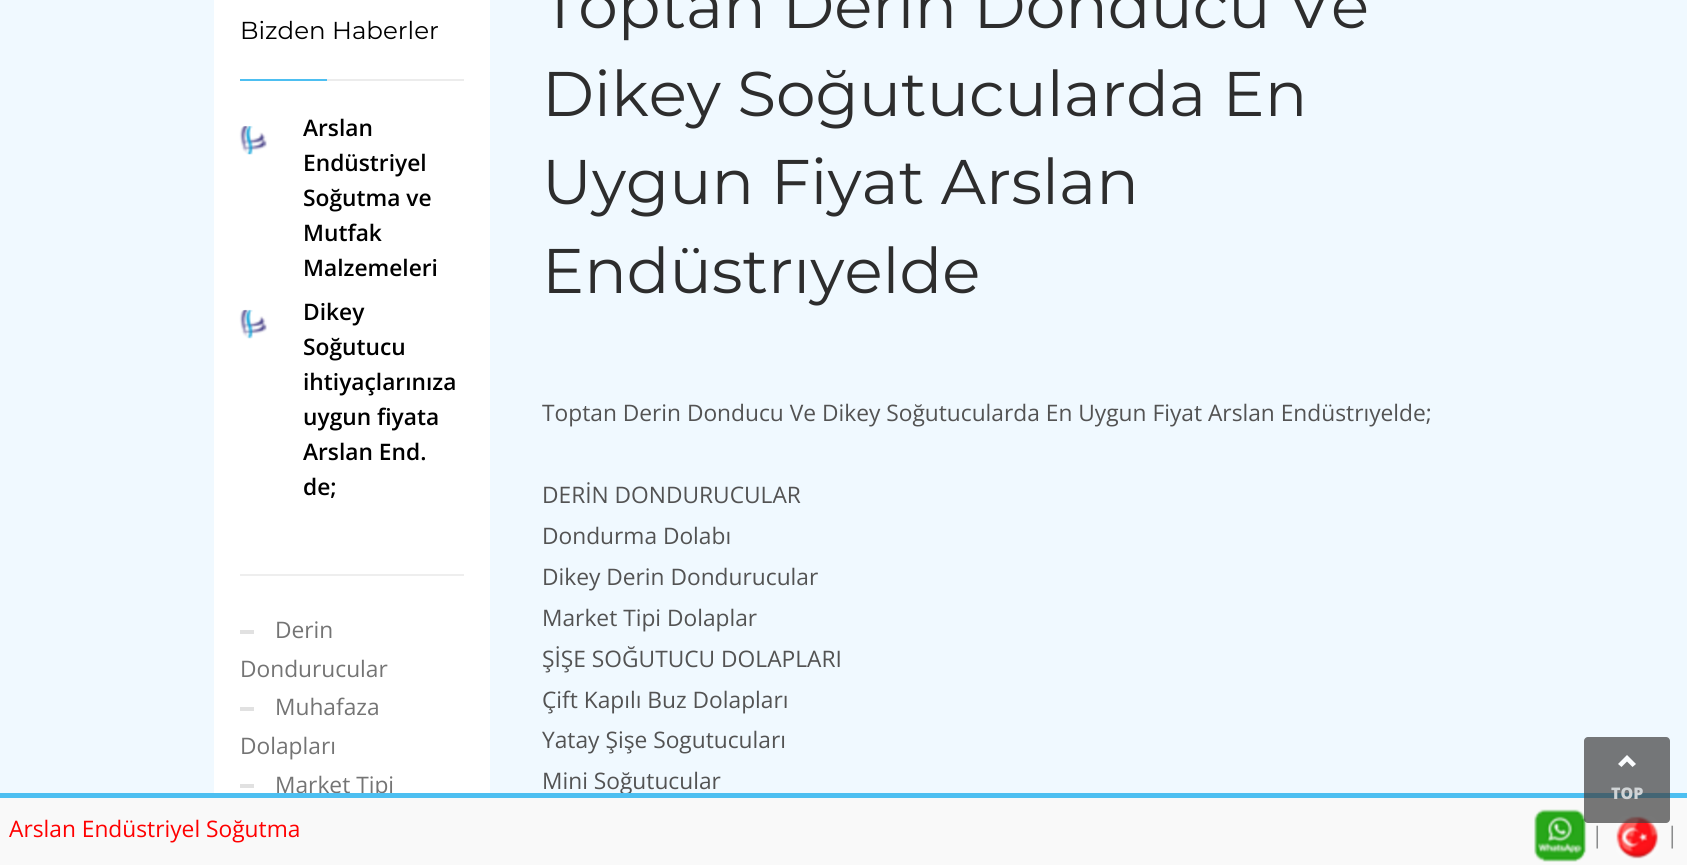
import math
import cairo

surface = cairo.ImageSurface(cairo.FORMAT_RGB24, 1687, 865)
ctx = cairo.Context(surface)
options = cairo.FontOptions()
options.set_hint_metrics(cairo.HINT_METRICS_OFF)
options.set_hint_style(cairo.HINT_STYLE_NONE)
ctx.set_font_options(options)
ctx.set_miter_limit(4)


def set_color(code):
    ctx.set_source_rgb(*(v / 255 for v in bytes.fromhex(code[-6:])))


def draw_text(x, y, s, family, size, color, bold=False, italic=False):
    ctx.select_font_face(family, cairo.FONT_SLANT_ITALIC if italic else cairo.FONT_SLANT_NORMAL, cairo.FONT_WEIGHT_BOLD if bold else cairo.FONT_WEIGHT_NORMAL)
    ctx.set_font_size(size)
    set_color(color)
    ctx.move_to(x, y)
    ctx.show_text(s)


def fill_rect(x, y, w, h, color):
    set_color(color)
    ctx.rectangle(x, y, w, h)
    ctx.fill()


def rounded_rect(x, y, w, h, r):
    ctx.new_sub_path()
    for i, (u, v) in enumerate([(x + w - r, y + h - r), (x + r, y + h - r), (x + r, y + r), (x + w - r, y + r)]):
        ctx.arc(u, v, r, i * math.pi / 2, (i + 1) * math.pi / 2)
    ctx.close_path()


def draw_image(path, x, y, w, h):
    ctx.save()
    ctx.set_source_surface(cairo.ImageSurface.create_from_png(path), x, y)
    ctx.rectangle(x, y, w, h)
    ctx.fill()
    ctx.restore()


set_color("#f0f9ff")
ctx.paint()
fill_rect(214, 0, 276, 793, "#ffffff")
draw_text(240, 39, "Bizden Haberler", "Montserrat", 24.5, "#000000")
fill_rect(240, 79, 87, 2, "#4dbff1")
fill_rect(327, 79, 137, 2, "#ececec")
draw_image("assets/img1.png", 239, 126, 28, 29)
rounded_rect(242.5, 121.5, 23, 34, 2.5)
ctx.set_source_rgba(1, 1, 1, 0.15)
ctx.set_line_width(5)
ctx.stroke()
draw_text(303, 136, "Arslan", "Open Sans SemiBold", 22.75, "#000000")
draw_text(303, 171, "Endüstriyel", "Open Sans SemiBold", 22.75, "#000000")
draw_text(303, 206, "Soğutma ve", "Open Sans SemiBold", 22.75, "#000000")
draw_text(303, 241, "Mutfak", "Open Sans SemiBold", 22.75, "#000000")
draw_text(303, 276, "Malzemeleri", "Open Sans SemiBold", 22.75, "#000000")
draw_image("assets/img2.png", 239, 309, 28, 30)
rounded_rect(242.5, 305.5, 23, 33, 2.5)
ctx.set_source_rgba(1, 1, 1, 0.15)
ctx.stroke()
draw_text(303, 320, "Dikey", "Open Sans SemiBold", 22.75, "#000000")
draw_text(303, 355, "Soğutucu", "Open Sans SemiBold", 22.75, "#000000")
draw_text(303, 390, "ihtiyaçlarınıza", "Open Sans SemiBold", 22.75, "#000000")
draw_text(303, 425, "uygun fiyata", "Open Sans SemiBold", 22.75, "#000000")
draw_text(303, 460, "Arslan End.", "Open Sans SemiBold", 22.75, "#000000")
draw_text(303, 495, "de;", "Open Sans SemiBold", 22.75, "#000000")
fill_rect(240, 574, 224, 2, "#eeeeee")
fill_rect(240, 630, 14, 4, "#e1e1e1")
draw_text(275, 638, "Derin", "Open Sans", 22.75, "#747474")
draw_text(240, 677, "Dondurucular", "Open Sans", 22.75, "#747474")
fill_rect(240, 707, 14, 4, "#e1e1e1")
draw_text(275, 715, "Muhafaza", "Open Sans", 22.75, "#747474")
draw_text(240, 754, "Dolapları", "Open Sans", 22.75, "#747474")
fill_rect(240, 784, 14, 4, "#e1e1e1")
draw_text(275, 793, "Market Tipi", "Open Sans", 22.75, "#747474")
draw_text(542, 28, "Toptan Derin Donducu Ve", "Montserrat", 63, "#2d2d2d")
draw_text(542, 116, "Dikey Soğutucularda En", "Montserrat", 63, "#2d2d2d")
draw_text(542, 204, "Uygun Fiyat Arslan", "Montserrat", 63, "#2d2d2d")
draw_text(542, 293, "Endüstrıyelde", "Montserrat", 63, "#2d2d2d")
draw_text(542, 421, "Toptan Derin Donducu Ve Dikey Soğutucularda En Uygun Fiyat Arslan Endüstrıyelde;", "Open Sans", 22.75, "#535353")
draw_text(542, 503, "DERİN DONDURUCULAR", "Open Sans", 22.75, "#535353")
draw_text(542, 544, "Dondurma Dolabı", "Open Sans", 22.75, "#535353")
draw_text(542, 585, "Dikey Derin Dondurucular", "Open Sans", 22.75, "#535353")
draw_text(542, 626, "Market Tipi Dolaplar", "Open Sans", 22.75, "#535353")
draw_text(542, 667, "ŞİŞE SOĞUTUCU DOLAPLARI", "Open Sans", 22.75, "#535353")
draw_text(542, 708, "Çift Kapılı Buz Dolapları", "Open Sans", 22.75, "#535353")
draw_text(542, 748, "Yatay Şişe Sogutucuları", "Open Sans", 22.75, "#535353")
draw_text(542, 789, "Mini Soğutucular", "Open Sans", 22.75, "#535353")
fill_rect(0, 798, 1687, 67, "#f9f9f9")
fill_rect(0, 793, 1687, 5, "#4dbff1")
draw_text(9, 837, "Arslan Endüstriyel Soğutma", "Open Sans", 22.75, "#ff0000")
draw_image("assets/img3.png", 1534, 809, 53, 53)
draw_text(1591, 843, "|", "Open Sans", 22.75, "#8b8c8d")
draw_image("assets/img4.png", 1616, 816, 43, 43)
draw_text(1666, 843, "|", "Open Sans", 22.75, "#8b8c8d")
ctx.set_source_rgba(0.251, 0.251, 0.251, 0.7)
rounded_rect(1584, 737, 86, 86, 4)
ctx.fill()
set_color("#fbfdff")
ctx.new_path()
ctx.move_to(1627, 755)
ctx.line_to(1636, 764)
ctx.line_to(1632.5, 767)
ctx.line_to(1627, 761.5)
ctx.line_to(1621.5, 767)
ctx.line_to(1618, 764)
ctx.close_path()
ctx.fill()
draw_text(1611, 799, "TOP", "Open Sans ExtraBold", 16, "#d0d4d6")
surface.write_to_png("output.png")
